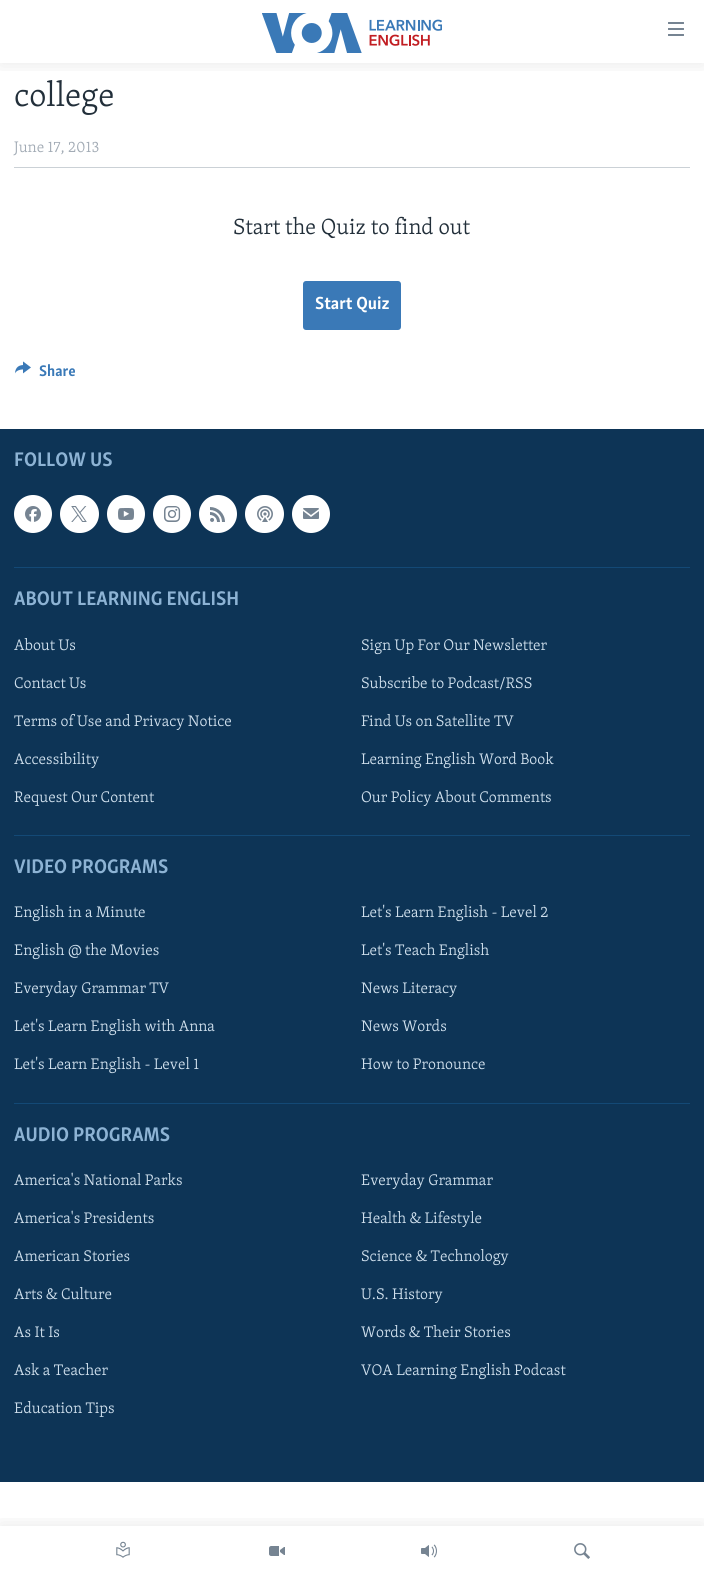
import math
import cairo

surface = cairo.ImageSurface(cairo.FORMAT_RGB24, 704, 1576)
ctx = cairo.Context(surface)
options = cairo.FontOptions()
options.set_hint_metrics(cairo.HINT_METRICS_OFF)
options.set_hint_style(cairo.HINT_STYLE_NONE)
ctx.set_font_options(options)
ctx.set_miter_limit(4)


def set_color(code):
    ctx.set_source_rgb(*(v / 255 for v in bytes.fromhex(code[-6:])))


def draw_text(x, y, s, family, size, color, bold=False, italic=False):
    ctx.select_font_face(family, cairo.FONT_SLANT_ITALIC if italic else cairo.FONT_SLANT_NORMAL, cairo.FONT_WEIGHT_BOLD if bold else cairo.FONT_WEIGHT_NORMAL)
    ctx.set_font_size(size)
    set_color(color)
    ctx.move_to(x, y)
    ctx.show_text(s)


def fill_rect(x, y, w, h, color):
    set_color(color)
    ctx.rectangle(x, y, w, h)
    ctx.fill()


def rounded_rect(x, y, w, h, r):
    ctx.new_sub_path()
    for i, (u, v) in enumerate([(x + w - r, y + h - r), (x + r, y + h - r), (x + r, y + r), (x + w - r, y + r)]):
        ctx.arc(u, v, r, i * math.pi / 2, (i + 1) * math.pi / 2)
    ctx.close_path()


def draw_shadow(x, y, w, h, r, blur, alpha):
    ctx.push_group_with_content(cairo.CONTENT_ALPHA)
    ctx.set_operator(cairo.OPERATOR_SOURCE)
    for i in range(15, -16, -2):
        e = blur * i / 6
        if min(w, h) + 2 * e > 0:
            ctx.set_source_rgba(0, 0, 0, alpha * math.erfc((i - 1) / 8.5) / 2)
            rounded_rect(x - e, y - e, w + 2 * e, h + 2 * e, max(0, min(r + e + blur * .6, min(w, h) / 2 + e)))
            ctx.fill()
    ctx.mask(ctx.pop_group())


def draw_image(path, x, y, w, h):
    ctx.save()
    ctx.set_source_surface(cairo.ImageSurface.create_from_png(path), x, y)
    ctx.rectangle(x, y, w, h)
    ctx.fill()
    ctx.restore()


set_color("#ffffff")
ctx.paint()
ctx.save()
ctx.rectangle(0, 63, 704, 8)
ctx.clip()
set_color("#000000")
draw_shadow(0, 0, 704, 63, 0, 10, 0.1)
ctx.restore()
draw_image("assets/img1.png", 262, 13, 180, 40)
draw_image("assets/img2.png", 668, 22, 16, 14)
ctx.save()
ctx.rectangle(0, 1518, 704, 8)
ctx.clip()
set_color("#000000")
draw_shadow(0, 1526, 704, 50, 0, 10, 0.1)
ctx.restore()
draw_image("assets/img3.png", 116, 1541, 14, 17)
draw_image("assets/img4.png", 269, 1546, 16, 10)
draw_image("assets/img5.png", 421, 1544, 16, 14)
draw_image("assets/img6.png", 574, 1543, 16, 16)
draw_text(14, 106, "college", "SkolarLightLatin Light", 34, "#222f3a")
draw_text(14, 152, "June 17, 2013", "SkolarLightLatin Light", 15.75, "#a1aab4")
fill_rect(14, 167, 676, 1, "#cbd1d6")
draw_text(233, 234, "Start the Quiz to find out", "SkolarLightLatin Light", 22.5, "#222f3a")
set_color("#3a79b7")
rounded_rect(303, 281, 98, 49, 3)
ctx.fill()
draw_text(315, 309, "Start Quiz", "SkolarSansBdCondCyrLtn", 18, "#ffffff", bold=True)
draw_image("assets/img7.png", 15, 361, 16, 13)
draw_text(39, 376, "Share", "SkolarSansBdCondCyrLtn", 15.75, "#3a79b7", bold=True)
fill_rect(0, 429, 704, 1053, "#0d3456")
draw_text(14, 466, "FOLLOW US", "SkolarSansBdCondCyrLtn", 20.25, "#8db3d4", bold=True)
set_color("#ffffff")
ctx.new_path()
ctx.arc(33, 514, 19, 0, 2 * math.pi)
ctx.fill()
draw_image("assets/img8.png", 25, 506, 16, 16)
rounded_rect(60, 495, 39, 38, 19)
ctx.fill()
draw_image("assets/img9.png", 71, 506, 16, 16)
ctx.arc(126, 514, 19, 0, 2 * math.pi)
ctx.fill()
draw_image("assets/img10.png", 118, 508, 16, 12)
ctx.arc(172, 514, 19, 0, 2 * math.pi)
ctx.fill()
draw_image("assets/img11.png", 164, 506, 17, 16)
ctx.arc(218, 514, 19, 0, 2 * math.pi)
ctx.fill()
draw_image("assets/img12.png", 210, 507, 15, 15)
rounded_rect(245, 495, 39, 38, 19)
ctx.fill()
draw_image("assets/img13.png", 257, 506, 16, 16)
ctx.arc(311, 514, 19, 0, 2 * math.pi)
ctx.fill()
draw_image("assets/img14.png", 303, 508, 16, 11)
fill_rect(14, 567, 676, 1, "#134976")
draw_text(14, 605, "ABOUT LEARNING ENGLISH", "SkolarSansBdCondCyrLtn", 20.25, "#8db3d4", bold=True)
draw_text(14, 650, "About Us", "SkolarLightLatin Light", 15.75, "#d1e1ee")
draw_text(361, 650, "Sign Up For Our Newsletter", "SkolarLightLatin Light", 15.75, "#d1e1ee")
draw_text(14, 688, "Contact Us", "SkolarLightLatin Light", 15.75, "#d1e1ee")
draw_text(361, 688, "Subscribe to Podcast/RSS", "SkolarLightLatin Light", 15.75, "#d1e1ee")
draw_text(14, 726, "Terms of Use and Privacy Notice", "SkolarLightLatin Light", 15.75, "#d1e1ee")
draw_text(361, 726, "Find Us on Satellite TV", "SkolarLightLatin Light", 15.75, "#d1e1ee")
draw_text(14, 764, "Accessibility", "SkolarLightLatin Light", 15.75, "#d1e1ee")
draw_text(361, 764, "Learning English Word Book", "SkolarLightLatin Light", 15.75, "#d1e1ee")
draw_text(14, 802, "Request Our Content", "SkolarLightLatin Light", 15.75, "#d1e1ee")
draw_text(361, 802, "Our Policy About Comments", "SkolarLightLatin Light", 15.75, "#d1e1ee")
fill_rect(14, 835, 676, 1, "#134976")
draw_text(14, 873, "VIDEO PROGRAMS", "SkolarSansBdCondCyrLtn", 20.25, "#8db3d4", bold=True)
draw_text(14, 917, "English in a Minute", "SkolarLightLatin Light", 15.75, "#d1e1ee")
draw_text(361, 917, "Let's Learn English - Level 2", "SkolarLightLatin Light", 15.75, "#d1e1ee")
draw_text(14, 955, "English @ the Movies", "SkolarLightLatin Light", 15.75, "#d1e1ee")
draw_text(361, 955, "Let's Teach English", "SkolarLightLatin Light", 15.75, "#d1e1ee")
draw_text(14, 993, "Everyday Grammar TV", "SkolarLightLatin Light", 15.75, "#d1e1ee")
draw_text(361, 993, "News Literacy", "SkolarLightLatin Light", 15.75, "#d1e1ee")
draw_text(14, 1031, "Let's Learn English with Anna", "SkolarLightLatin Light", 15.75, "#d1e1ee")
draw_text(361, 1031, "News Words", "SkolarLightLatin Light", 15.75, "#d1e1ee")
draw_text(14, 1069, "Let's Learn English - Level 1", "SkolarLightLatin Light", 15.75, "#d1e1ee")
draw_text(361, 1069, "How to Pronounce", "SkolarLightLatin Light", 15.75, "#d1e1ee")
fill_rect(14, 1103, 676, 1, "#134976")
draw_text(14, 1141, "AUDIO PROGRAMS", "SkolarSansBdCondCyrLtn", 20.25, "#8db3d4", bold=True)
draw_text(14, 1185, "America's National Parks", "SkolarLightLatin Light", 15.75, "#d1e1ee")
draw_text(361, 1185, "Everyday Grammar", "SkolarLightLatin Light", 15.75, "#d1e1ee")
draw_text(14, 1223, "America's Presidents", "SkolarLightLatin Light", 15.75, "#d1e1ee")
draw_text(361, 1223, "Health & Lifestyle", "SkolarLightLatin Light", 15.75, "#d1e1ee")
draw_text(14, 1261, "American Stories", "SkolarLightLatin Light", 15.75, "#d1e1ee")
draw_text(361, 1261, "Science & Technology", "SkolarLightLatin Light", 15.75, "#d1e1ee")
draw_text(14, 1299, "Arts & Culture", "SkolarLightLatin Light", 15.75, "#d1e1ee")
draw_text(361, 1299, "U.S. History", "SkolarLightLatin Light", 15.75, "#d1e1ee")
draw_text(14, 1337, "As It Is", "SkolarLightLatin Light", 15.75, "#d1e1ee")
draw_text(361, 1337, "Words & Their Stories", "SkolarLightLatin Light", 15.75, "#d1e1ee")
draw_text(14, 1375, "Ask a Teacher", "SkolarLightLatin Light", 15.75, "#d1e1ee")
draw_text(361, 1375, "VOA Learning English Podcast", "SkolarLightLatin Light", 15.75, "#d1e1ee")
draw_text(14, 1413, "Education Tips", "SkolarLightLatin Light", 15.75, "#d1e1ee")
surface.write_to_png("output.png")
